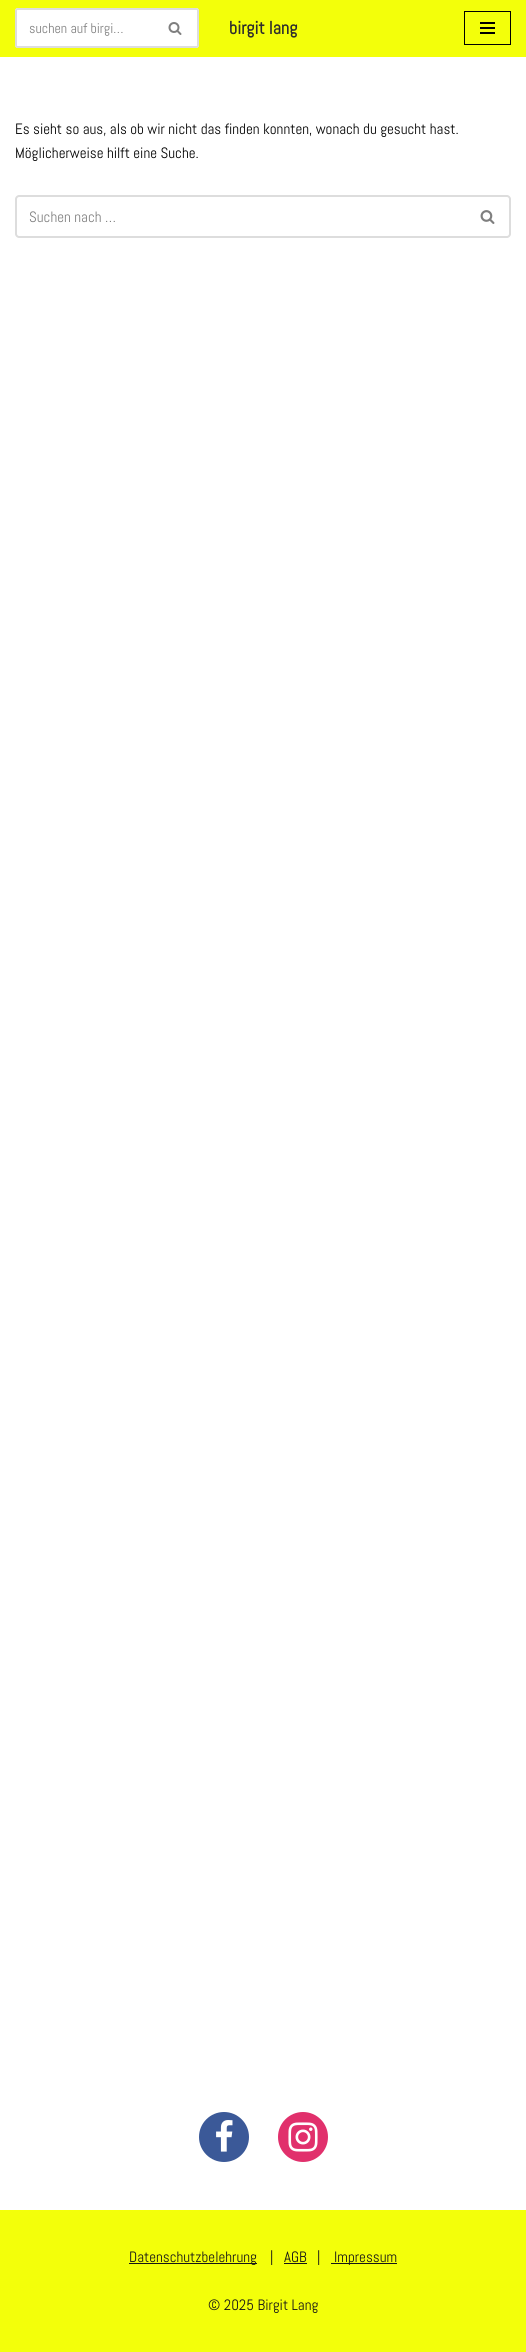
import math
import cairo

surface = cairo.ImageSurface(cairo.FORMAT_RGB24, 526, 2352)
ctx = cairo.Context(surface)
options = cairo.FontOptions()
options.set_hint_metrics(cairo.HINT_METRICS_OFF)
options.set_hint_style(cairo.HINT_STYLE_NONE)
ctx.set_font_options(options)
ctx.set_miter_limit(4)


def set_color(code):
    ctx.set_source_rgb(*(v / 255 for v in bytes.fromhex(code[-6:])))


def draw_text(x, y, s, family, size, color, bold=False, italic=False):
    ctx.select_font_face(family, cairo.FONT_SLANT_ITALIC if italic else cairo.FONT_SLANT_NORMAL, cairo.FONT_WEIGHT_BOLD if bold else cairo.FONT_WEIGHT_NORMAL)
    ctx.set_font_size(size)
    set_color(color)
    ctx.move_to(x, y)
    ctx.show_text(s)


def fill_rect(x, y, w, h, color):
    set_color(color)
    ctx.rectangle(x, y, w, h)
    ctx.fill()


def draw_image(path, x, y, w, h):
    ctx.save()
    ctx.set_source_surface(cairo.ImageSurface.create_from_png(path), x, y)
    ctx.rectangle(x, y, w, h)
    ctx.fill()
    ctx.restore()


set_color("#ffffff")
ctx.paint()
fill_rect(0, 0, 526, 57, "#f3ff0a")
set_color("#ffffff")
ctx.new_path()
ctx.move_to(18, 8)
ctx.line_to(154, 8)
ctx.line_to(154, 48)
ctx.line_to(18, 48)
ctx.curve_to(16.5, 48, 15, 46.5, 15, 45)
ctx.line_to(15, 11)
ctx.curve_to(15, 9.5, 16.5, 8, 18, 8)
ctx.close_path()
ctx.fill()
set_color("#dddddd")
ctx.set_fill_rule(cairo.FILL_RULE_EVEN_ODD)
ctx.new_path()
ctx.move_to(18, 8)
ctx.line_to(154, 8)
ctx.line_to(154, 48)
ctx.line_to(18, 48)
ctx.curve_to(16, 48, 15, 47, 15, 45)
ctx.line_to(15, 11)
ctx.curve_to(15, 9, 16, 8, 18, 8)
ctx.close_path()
ctx.move_to(18, 10)
ctx.line_to(154, 10)
ctx.line_to(154, 46)
ctx.line_to(18, 46)
ctx.curve_to(17, 46, 17, 46, 17, 45)
ctx.line_to(17, 11)
ctx.curve_to(17, 10, 17, 10, 18, 10)
ctx.close_path()
ctx.fill()
draw_text(29, 33, "suchen auf birgi…", "Abel", 14, "#808080")
set_color("#ffffff")
ctx.new_path()
ctx.move_to(154, 8)
ctx.line_to(196, 8)
ctx.curve_to(197.5, 8, 199, 9.5, 199, 11)
ctx.line_to(199, 45)
ctx.curve_to(199, 46.5, 197.5, 48, 196, 48)
ctx.line_to(154, 48)
ctx.close_path()
ctx.fill()
set_color("#dddddd")
ctx.new_path()
ctx.move_to(154, 8)
ctx.line_to(196, 8)
ctx.curve_to(198, 8, 199, 9, 199, 11)
ctx.line_to(199, 45)
ctx.curve_to(199, 47, 198, 48, 196, 48)
ctx.line_to(154, 48)
ctx.close_path()
ctx.move_to(154, 10)
ctx.line_to(196, 10)
ctx.curve_to(197, 10, 197, 10, 197, 11)
ctx.line_to(197, 45)
ctx.curve_to(197, 46, 197, 46, 196, 46)
ctx.line_to(154, 46)
ctx.close_path()
ctx.fill()
draw_image("assets/img1.png", 168, 22, 14, 13)
draw_text(229, 34, "birgit lang", "Abel", 18, "#2d2d2d", bold=True)
ctx.rectangle(464.5, 11.5, 46, 33)
set_color("#000000")
ctx.set_line_width(1)
ctx.stroke()
fill_rect(480, 22, 15, 2, "#000000")
fill_rect(480, 27, 15, 2, "#000000")
fill_rect(480, 32, 15, 2, "#000000")
draw_text(15, 134, "Es sieht so aus, als ob wir nicht das finden konnten, wonach du gesucht hast.", "Abel", 15, "#000000")
draw_text(15, 158, "Möglicherweise hilft eine Suche.", "Abel", 15, "#000000")
set_color("#dddddd")
ctx.new_path()
ctx.move_to(19, 195)
ctx.line_to(466, 195)
ctx.line_to(466, 238)
ctx.line_to(19, 238)
ctx.curve_to(17, 238, 15, 236, 15, 234)
ctx.line_to(15, 199)
ctx.curve_to(15, 197, 17, 195, 19, 195)
ctx.close_path()
ctx.move_to(19, 197)
ctx.line_to(466, 197)
ctx.line_to(466, 236)
ctx.line_to(19, 236)
ctx.curve_to(18, 236, 17, 235, 17, 234)
ctx.line_to(17, 199)
ctx.curve_to(17, 198, 18, 197, 19, 197)
ctx.close_path()
ctx.fill()
draw_text(29, 222, "Suchen nach …", "Abel", 15, "#808080")
set_color("#dddddd")
ctx.new_path()
ctx.move_to(466, 195)
ctx.line_to(507, 195)
ctx.curve_to(509, 195, 511, 197, 511, 199)
ctx.line_to(511, 234)
ctx.curve_to(511, 236, 509, 238, 507, 238)
ctx.line_to(466, 238)
ctx.close_path()
ctx.move_to(466, 197)
ctx.line_to(507, 197)
ctx.curve_to(508, 197, 509, 198, 509, 199)
ctx.line_to(509, 234)
ctx.curve_to(509, 235, 508, 236, 507, 236)
ctx.line_to(466, 236)
ctx.close_path()
ctx.fill()
draw_image("assets/img2.png", 480, 210, 15, 14)
set_color("#3b5998")
ctx.arc(224, 2137, 25, 0, 2 * math.pi)
ctx.fill()
draw_image("assets/img3.png", 216, 2120, 17, 32)
set_color("#e1306c")
ctx.arc(303, 2137, 25, 0, 2 * math.pi)
ctx.fill()
draw_image("assets/img4.png", 288, 2122, 30, 30)
fill_rect(0, 2210, 526, 142, "#f3ff0a")
fill_rect(129, 2263, 128, 1, "#161616")
draw_text(129, 2262, "Datenschutzbelehrung", "Abel", 15, "#161616")
draw_text(270, 2262, "|", "Abel", 15, "#161616")
draw_text(284, 2262, "AGB", "Abel", 15, "#161616")
fill_rect(284, 2263, 23, 1, "#161616")
draw_text(317, 2262, "|", "Abel", 15, "#161616")
fill_rect(331, 2263, 66, 1, "#161616")
draw_text(334, 2262, "Impressum", "Abel", 15, "#161616")
draw_text(208, 2310, "© 2025 Birgit Lang", "Abel", 15, "#161616")
surface.write_to_png("output.png")
